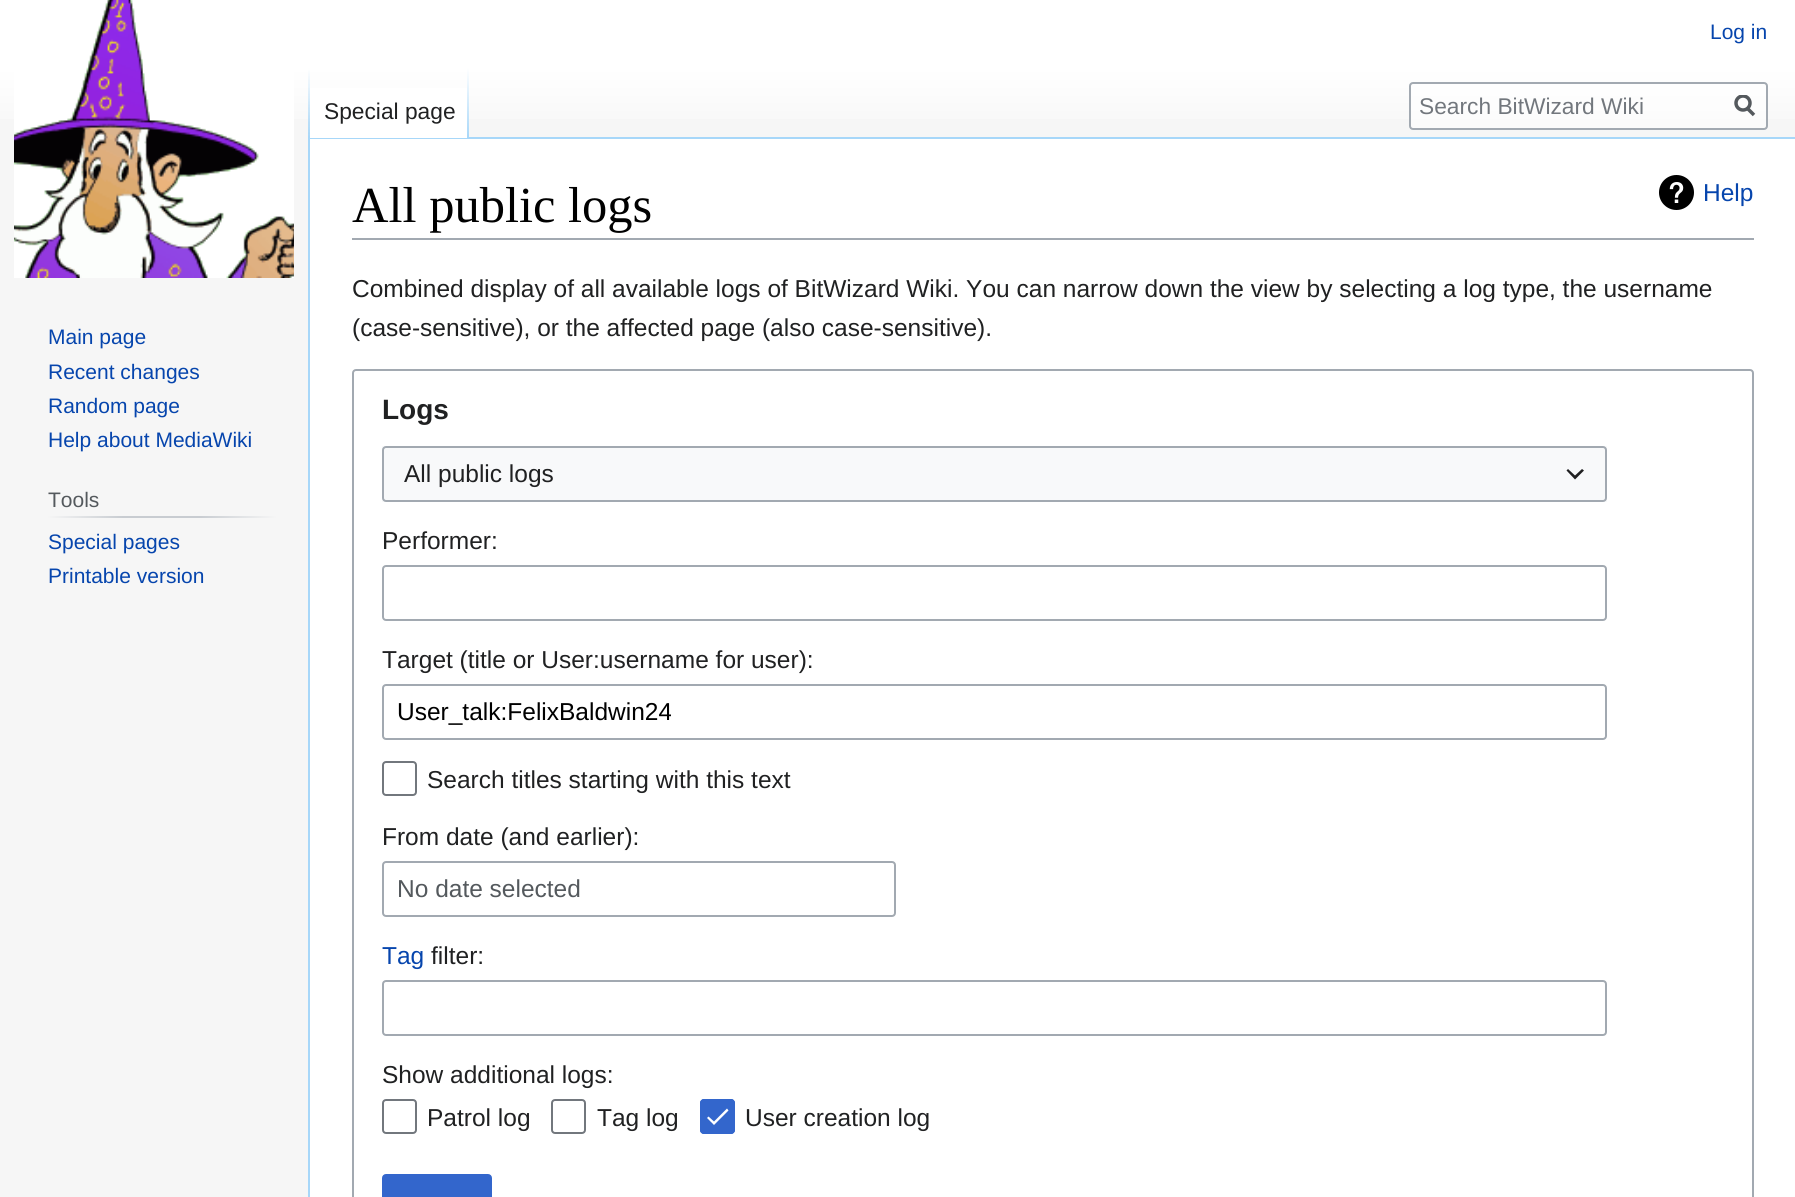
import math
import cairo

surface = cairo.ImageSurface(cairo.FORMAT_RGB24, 1795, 1197)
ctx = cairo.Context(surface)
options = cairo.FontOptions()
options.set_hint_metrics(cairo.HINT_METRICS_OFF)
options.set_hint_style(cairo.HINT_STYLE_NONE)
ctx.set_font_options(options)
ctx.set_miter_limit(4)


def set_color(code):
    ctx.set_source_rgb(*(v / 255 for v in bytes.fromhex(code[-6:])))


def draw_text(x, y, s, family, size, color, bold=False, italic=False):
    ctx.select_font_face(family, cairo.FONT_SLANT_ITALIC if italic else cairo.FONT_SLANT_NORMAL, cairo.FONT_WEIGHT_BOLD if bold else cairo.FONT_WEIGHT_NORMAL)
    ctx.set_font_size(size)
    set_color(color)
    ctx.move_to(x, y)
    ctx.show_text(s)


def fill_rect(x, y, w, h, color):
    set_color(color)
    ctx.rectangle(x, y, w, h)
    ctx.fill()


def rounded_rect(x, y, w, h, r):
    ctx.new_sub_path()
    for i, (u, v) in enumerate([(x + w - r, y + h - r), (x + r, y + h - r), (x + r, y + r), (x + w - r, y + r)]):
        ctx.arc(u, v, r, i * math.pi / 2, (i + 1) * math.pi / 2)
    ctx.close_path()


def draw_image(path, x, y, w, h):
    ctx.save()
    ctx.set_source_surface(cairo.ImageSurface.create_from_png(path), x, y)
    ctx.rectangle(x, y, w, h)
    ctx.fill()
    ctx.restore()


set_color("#f6f6f6")
ctx.paint()
gradient = cairo.LinearGradient(898, -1.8, 898, 138)
gradient.add_color_stop_rgba(0.5, 1, 1, 1, 1)
gradient.add_color_stop_rgba(1, 0.965, 0.965, 0.965, 1)
ctx.set_source(gradient)
ctx.rectangle(0, 0, 1795, 119)
ctx.fill()
draw_text(1710, 39, "Log in", "Liberation Sans", 21, "#0645ad")
fill_rect(308, 137, 1487, 2, "#a7d7f9")
fill_rect(308, 137, 2, 1060, "#a7d7f9")
gradient = cairo.LinearGradient(309, 68, 309, 138)
gradient.add_color_stop_rgba(0, 0.655, 0.843, 0.976, 0)
gradient.add_color_stop_rgba(1, 0.655, 0.843, 0.976, 1)
ctx.set_source(gradient)
ctx.rectangle(308, 68, 2, 70)
ctx.fill()
fill_rect(310, 88, 157, 50, "#ffffff")
gradient = cairo.LinearGradient(468, 68, 468, 138)
gradient.add_color_stop_rgba(0, 1, 1, 1, 1)
gradient.add_color_stop_rgba(1, 0.655, 0.843, 0.976, 1)
ctx.set_source(gradient)
ctx.rectangle(467, 68, 2, 70)
ctx.fill()
draw_text(324, 119, "Special page", "Liberation Sans", 22.75, "#202122")
ctx.set_source_rgba(1, 1, 1, 0.5)
rounded_rect(1410, 83, 357, 46, 3)
ctx.fill_preserve()
set_color("#a2a9b1")
ctx.stroke()
draw_text(1419, 114, "Search BitWizard Wiki", "Liberation Sans", 22.75, "#72777d")
ctx.new_path()
ctx.move_to(1754, 115)
ctx.line_to(1747, 108)
set_color("#54595d")
ctx.set_line_width(3.5)
ctx.stroke()
ctx.save()
ctx.rectangle(1734, 95, 21, 22)
ctx.clip()
ctx.arc(1743, 103, 7, 0, 2 * math.pi)
ctx.stroke()
ctx.restore()
draw_image("assets/img1.png", 14, 0, 280, 278)
draw_text(48, 344, "Main page", "Liberation Sans", 21, "#0645ad")
draw_text(48, 379, "Recent changes", "Liberation Sans", 21, "#0645ad")
draw_text(48, 413, "Random page", "Liberation Sans", 21, "#0645ad")
draw_text(48, 447, "Help about MediaWiki", "Liberation Sans", 21, "#0645ad")
gradient = cairo.LinearGradient(47, 517, 277, 517)
gradient.add_color_stop_rgba(0, 0.965, 0.965, 0.965, 1)
gradient.add_color_stop_rgba(0.33, 0.784, 0.8, 0.82, 1)
gradient.add_color_stop_rgba(0.66, 0.784, 0.8, 0.82, 1)
gradient.add_color_stop_rgba(1, 0.965, 0.965, 0.965, 1)
ctx.set_source(gradient)
ctx.rectangle(47, 516, 230, 2)
ctx.fill()
draw_text(48, 507, "Tools", "Liberation Sans", 21, "#54595d")
draw_text(48, 549, "Special pages", "Liberation Sans", 21, "#0645ad")
draw_text(48, 583, "Printable version", "Liberation Sans", 21, "#0645ad")
fill_rect(310, 139, 1485, 1058, "#ffffff")
fill_rect(352, 238, 1402, 2, "#a2a9b1")
draw_text(352, 222, "All public logs", "Liberation Serif", 50.5, "#000000")
draw_image("assets/img2.png", 1659, 175, 35, 35)
draw_text(1703, 201, "Help", "Liberation Sans", 24.5, "#0645ad")
draw_text(352, 297, "Combined display of all available logs of BitWizard Wiki. You can narrow down the view by selecting a log type, the username", "Liberation Sans", 24.5, "#202122")
draw_text(352, 336, "(case-sensitive), or the affected page (also case-sensitive).", "Liberation Sans", 24.5, "#202122")
rounded_rect(353, 370, 1400, 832, 3)
set_color("#a2a9b1")
ctx.set_line_width(2)
ctx.stroke()
draw_text(382, 419, "Logs", "Liberation Sans", 28, "#202122", bold=True)
fill_rect(382, 446, 1225, 56, "#f8f9fa")
rounded_rect(383, 447, 1223, 54, 3)
set_color("#a2a9b1")
ctx.stroke()
draw_text(404, 482, "All public logs", "Liberation Sans", 24.5, "#202122")
set_color("#202021")
ctx.new_path()
ctx.move_to(1582, 469)
ctx.line_to(1575, 475.5)
ctx.line_to(1568, 469)
ctx.line_to(1566.5, 470.5)
ctx.line_to(1575, 479.5)
ctx.line_to(1584, 470.5)
ctx.close_path()
ctx.fill()
draw_text(382, 549, "Performer:", "Liberation Sans", 24.5, "#202122")
rounded_rect(383, 566, 1223, 54, 3)
set_color("#a2a9b1")
ctx.stroke()
draw_text(382, 668, "Target (title or User:username for user):", "Liberation Sans", 24.5, "#202122")
rounded_rect(383, 685, 1223, 54, 3)
set_color("#a2a9b1")
ctx.stroke()
draw_text(397, 720, "User_talk:FelixBaldwin24", "Liberation Sans", 24.5, "#000000")
rounded_rect(383, 762, 33, 33, 3)
set_color("#72777d")
ctx.stroke()
draw_text(427, 788, "Search titles starting with this text", "Liberation Sans", 24.5, "#202122")
draw_text(382, 845, "From date (and earlier):", "Liberation Sans", 24.5, "#202122")
rounded_rect(383, 862, 512, 54, 3)
set_color("#a2a9b1")
ctx.stroke()
draw_text(397, 897, "No date selected", "Liberation Sans", 24.5, "#54595d")
draw_text(382, 964, "Tag", "Liberation Sans", 24.5, "#0645ad")
draw_text(431, 964, "filter:", "Liberation Sans", 24.5, "#202122")
rounded_rect(383, 981, 1223, 54, 3)
set_color("#a2a9b1")
ctx.stroke()
draw_text(382, 1083, "Show additional logs:", "Liberation Sans", 24.5, "#202122")
rounded_rect(383, 1100, 33, 33, 3)
set_color("#72777d")
ctx.stroke()
draw_text(427, 1126, "Patrol log", "Liberation Sans", 24.5, "#202122")
rounded_rect(552, 1100, 33, 33, 3)
set_color("#72777d")
ctx.stroke()
draw_text(597, 1126, "Tag log", "Liberation Sans", 24.5, "#202122")
set_color("#3366cc")
rounded_rect(700, 1099, 35, 35, 4)
ctx.fill()
set_color("#ffffff")
ctx.new_path()
ctx.move_to(714, 1121.5)
ctx.line_to(708.5, 1116.5)
ctx.line_to(707, 1118)
ctx.line_to(714, 1125)
ctx.line_to(728.5, 1110.5)
ctx.line_to(727, 1108.5)
ctx.close_path()
ctx.fill()
rounded_rect(701, 1100, 33, 33, 3)
set_color("#3366cc")
ctx.stroke()
draw_text(745, 1126, "User creation log", "Liberation Sans", 24.5, "#202122")
set_color("#3366cc")
rounded_rect(383, 1175, 108, 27, 3)
ctx.fill_preserve()
ctx.stroke()
surface.write_to_png("output.png")
